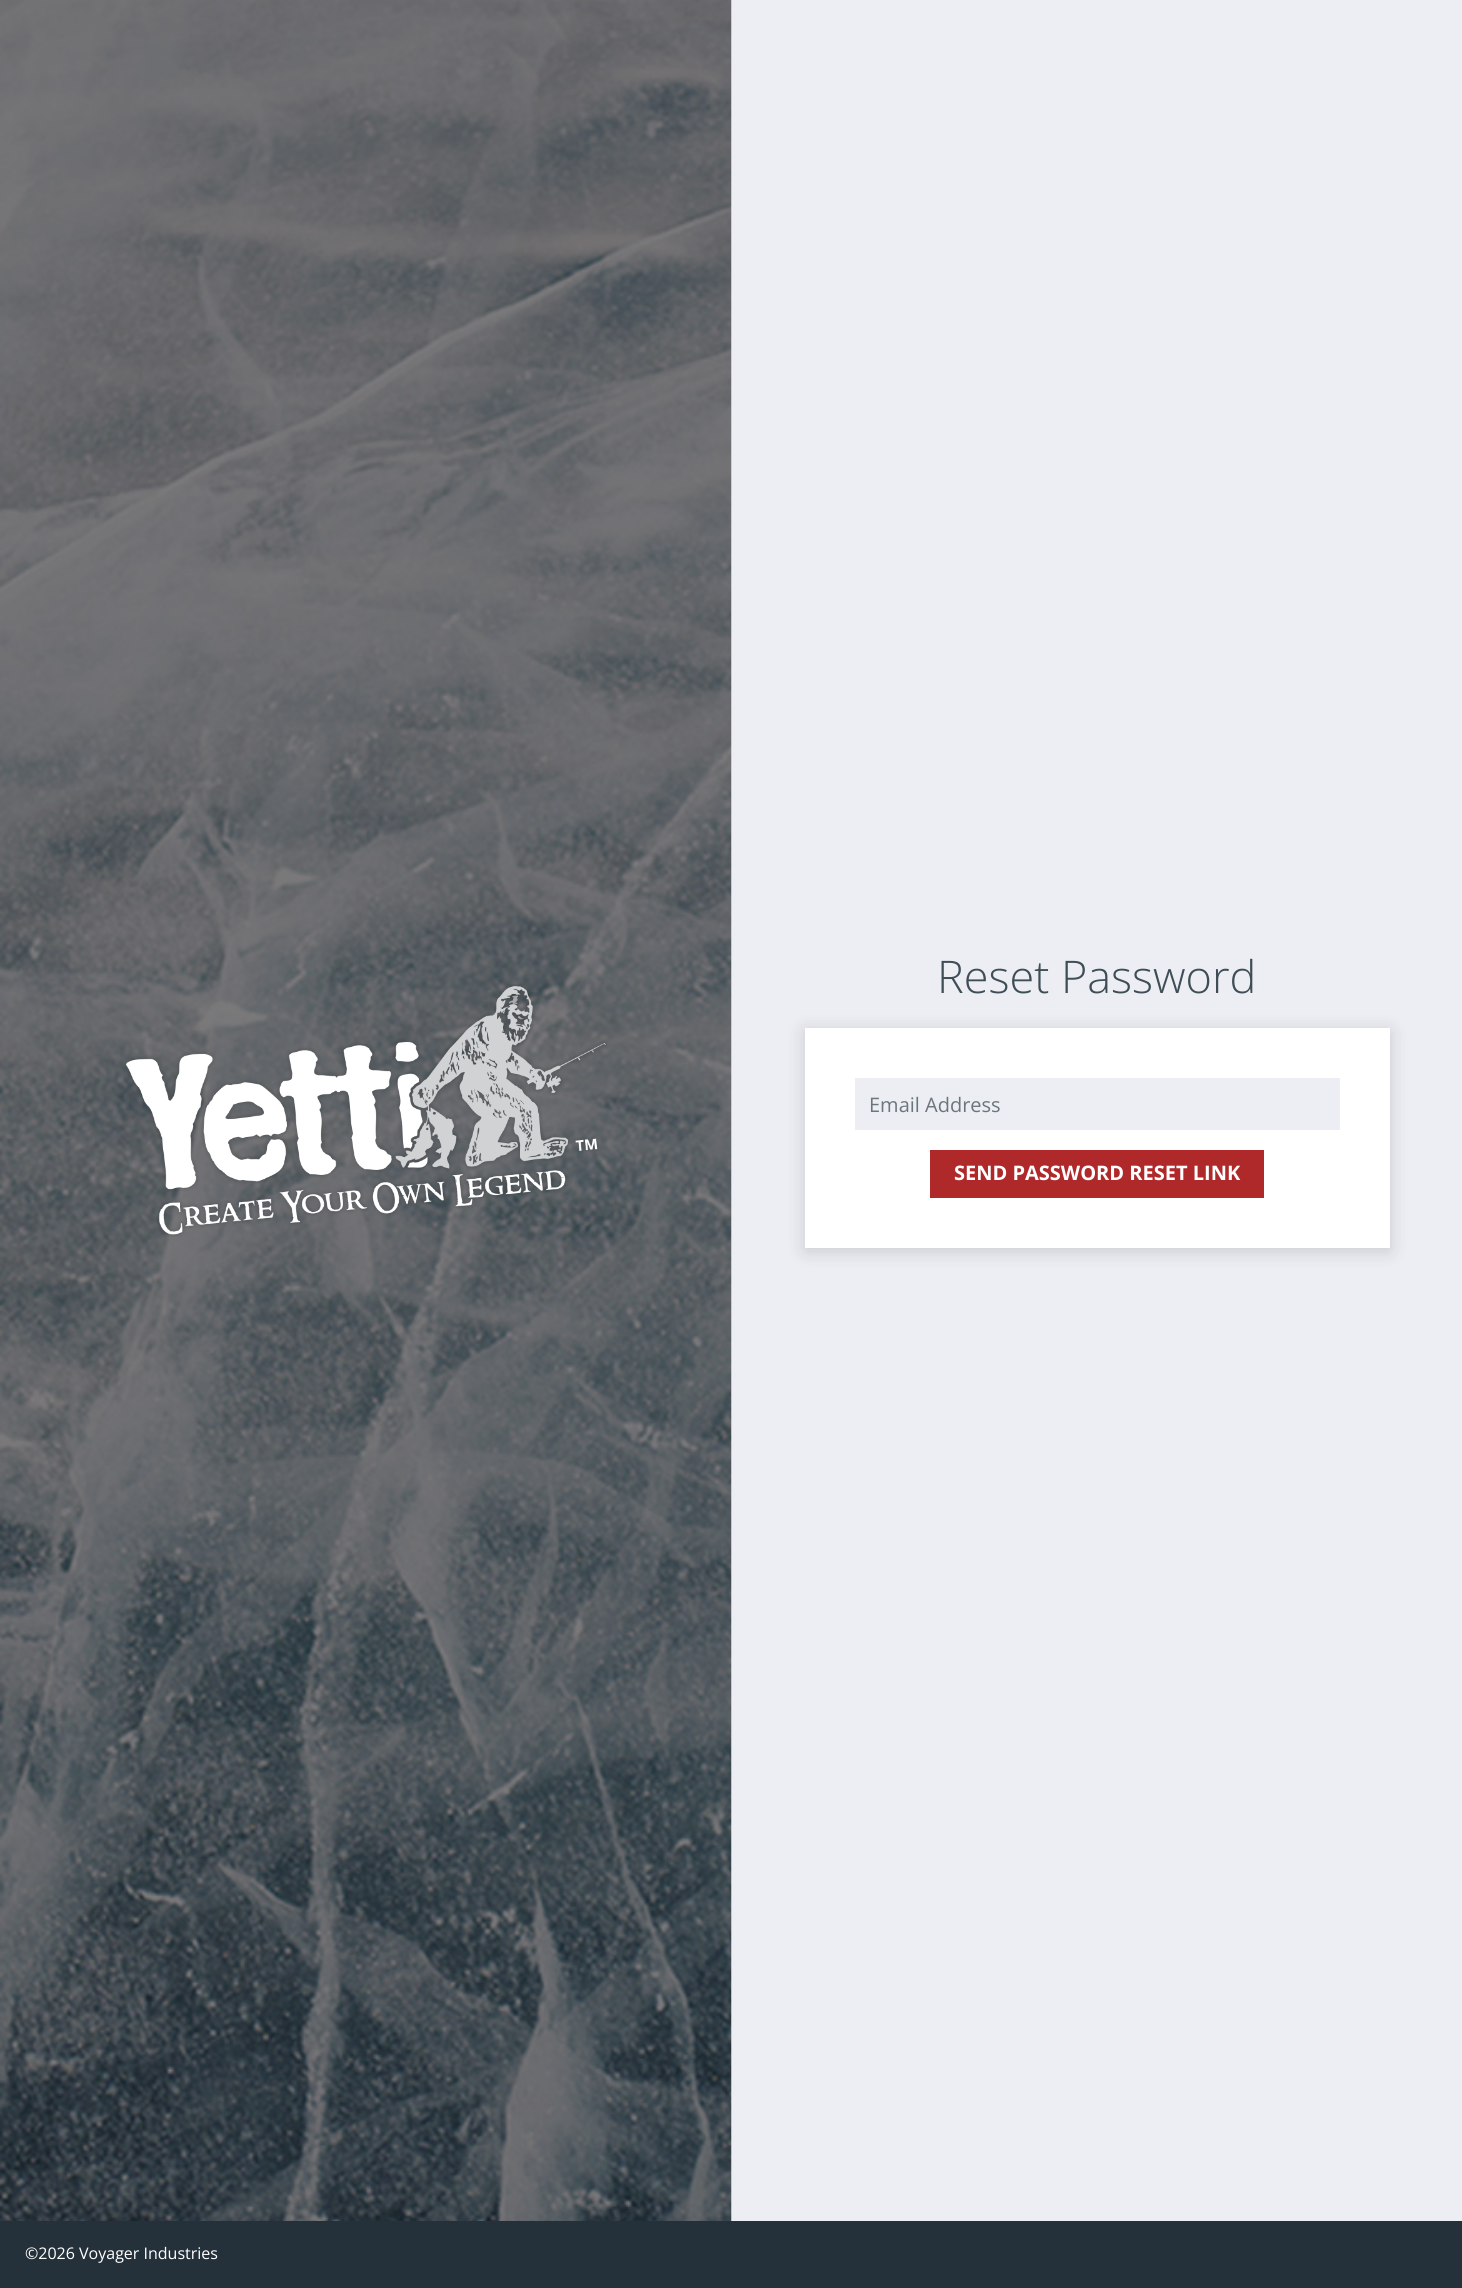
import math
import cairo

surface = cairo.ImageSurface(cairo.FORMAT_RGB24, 1462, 2288)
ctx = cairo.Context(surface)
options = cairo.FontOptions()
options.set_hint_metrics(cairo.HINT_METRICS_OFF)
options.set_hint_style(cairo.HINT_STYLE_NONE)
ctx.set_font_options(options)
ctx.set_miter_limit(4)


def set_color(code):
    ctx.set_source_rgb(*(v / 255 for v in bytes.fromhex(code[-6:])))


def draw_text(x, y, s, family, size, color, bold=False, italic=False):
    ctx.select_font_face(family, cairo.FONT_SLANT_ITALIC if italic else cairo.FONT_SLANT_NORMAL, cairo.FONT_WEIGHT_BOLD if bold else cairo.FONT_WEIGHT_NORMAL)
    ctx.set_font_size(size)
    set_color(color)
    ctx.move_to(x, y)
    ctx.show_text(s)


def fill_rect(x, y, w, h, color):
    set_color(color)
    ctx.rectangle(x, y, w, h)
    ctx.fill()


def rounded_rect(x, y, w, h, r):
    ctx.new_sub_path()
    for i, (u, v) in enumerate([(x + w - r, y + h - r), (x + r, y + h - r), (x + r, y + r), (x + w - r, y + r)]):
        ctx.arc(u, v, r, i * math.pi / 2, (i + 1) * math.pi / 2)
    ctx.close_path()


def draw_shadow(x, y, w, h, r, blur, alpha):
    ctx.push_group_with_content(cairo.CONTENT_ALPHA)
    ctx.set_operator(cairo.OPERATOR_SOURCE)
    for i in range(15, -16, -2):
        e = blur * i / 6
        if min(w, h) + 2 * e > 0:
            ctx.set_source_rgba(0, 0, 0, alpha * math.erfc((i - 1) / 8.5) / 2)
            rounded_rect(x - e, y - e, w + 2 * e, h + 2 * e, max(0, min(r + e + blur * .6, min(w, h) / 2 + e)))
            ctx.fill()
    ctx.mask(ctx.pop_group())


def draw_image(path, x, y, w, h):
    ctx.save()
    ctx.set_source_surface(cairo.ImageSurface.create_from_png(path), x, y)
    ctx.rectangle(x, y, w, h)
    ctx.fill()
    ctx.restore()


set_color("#eceef3")
ctx.paint()
draw_image("assets/img1.png", 0, 0, 732, 2221)
draw_image("assets/img2.png", 124, 984, 483, 253)
draw_text(937, 993, "Reset Password", "Open Sans Light", 45, "#3e4d56")
set_color("#000000")
draw_shadow(805, 1031, 585, 220, 0, 9.5, 0.15)
fill_rect(805, 1028, 585, 220, "#ffffff")
fill_rect(855, 1078, 485, 52, "#eceef3")
draw_text(869, 1112, "Email Address", "Open Sans", 20, "#6c757d")
fill_rect(930, 1150, 334, 48, "#af292b")
draw_text(954, 1180, "SEND PASSWORD RESET LINK", "Open Sans", 20, "#ffffff", bold=True)
fill_rect(0, 2221, 1462, 67, "#24313a")
draw_text(25, 2259, "©2026 Voyager Industries", "Open Sans", 16, "#ffffff")
surface.write_to_png("output.png")
